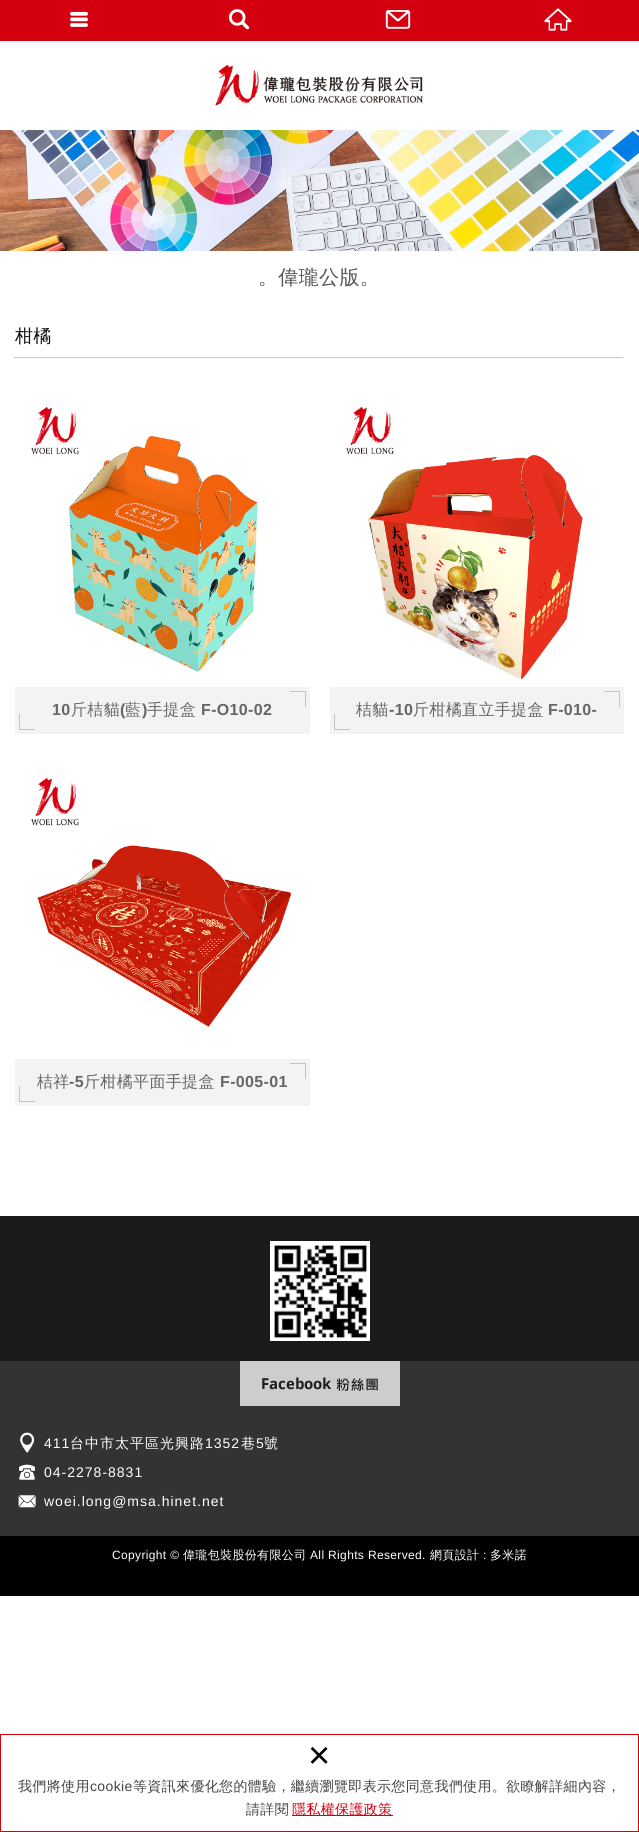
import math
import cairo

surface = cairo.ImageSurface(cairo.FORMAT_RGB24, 639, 1832)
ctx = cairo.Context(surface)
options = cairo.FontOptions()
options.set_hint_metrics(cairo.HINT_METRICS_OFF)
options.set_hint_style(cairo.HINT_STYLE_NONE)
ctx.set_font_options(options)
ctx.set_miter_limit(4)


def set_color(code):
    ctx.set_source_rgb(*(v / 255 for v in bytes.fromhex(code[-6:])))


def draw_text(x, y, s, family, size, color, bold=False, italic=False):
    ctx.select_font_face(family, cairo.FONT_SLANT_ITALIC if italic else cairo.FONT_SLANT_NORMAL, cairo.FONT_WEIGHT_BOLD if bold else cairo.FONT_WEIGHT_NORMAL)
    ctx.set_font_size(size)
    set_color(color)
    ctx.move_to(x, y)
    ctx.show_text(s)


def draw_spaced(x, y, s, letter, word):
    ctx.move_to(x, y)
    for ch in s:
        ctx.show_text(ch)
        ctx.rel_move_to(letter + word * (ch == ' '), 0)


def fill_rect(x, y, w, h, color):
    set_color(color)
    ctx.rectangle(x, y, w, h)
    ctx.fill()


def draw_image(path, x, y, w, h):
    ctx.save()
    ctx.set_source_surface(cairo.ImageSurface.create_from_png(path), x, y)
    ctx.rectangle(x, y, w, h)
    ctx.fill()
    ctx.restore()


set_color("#ffffff")
ctx.paint()
fill_rect(0, 40, 639, 1, "#d5000f")
fill_rect(0, 0, 639, 40, "#d5000f")
draw_image("assets/img1.png", 70, 11, 18, 16)
draw_image("assets/img2.png", 228, 9, 22, 21)
draw_image("assets/img3.png", 385, 10, 26, 19)
draw_image("assets/img4.png", 544, 8, 28, 23)
draw_image("assets/img5.png", 0, 130, 639, 121)
ctx.select_font_face("WenQuanYi Zen Hei Medium")
ctx.set_font_size(20)
set_color("#555555")
draw_spaced(258, 284, "。偉瓏公版。", 0.35, 0)
ctx.set_font_size(18)
set_color("#111111")
draw_spaced(15, 342, "柑橘", 0.35, 0)
fill_rect(14, 357, 609, 1, "#c6c6c6")
draw_image("assets/img6.png", 31, 407, 227, 266)
fill_rect(15, 687, 295, 47, "#f3f3f3")
fill_rect(290, 691, 16, 1, "#c3c3c3")
fill_rect(305, 691, 1, 16, "#c3c3c3")
ctx.select_font_face("Liberation Sans", cairo.FONT_SLANT_NORMAL, cairo.FONT_WEIGHT_BOLD)
ctx.set_font_size(16)
set_color("#666666")
draw_spaced(52, 715, "10", 0.35, 0)
ctx.select_font_face("WenQuanYi Zen Hei Medium")
draw_spaced(71, 715, "斤桔貓", 0.35, 0)
ctx.select_font_face("Liberation Sans", cairo.FONT_SLANT_NORMAL, cairo.FONT_WEIGHT_BOLD)
draw_spaced(120, 715, "(", 0.35, 0)
ctx.select_font_face("WenQuanYi Zen Hei Medium")
draw_spaced(125, 715, "藍", 0.35, 0)
ctx.select_font_face("Liberation Sans", cairo.FONT_SLANT_NORMAL, cairo.FONT_WEIGHT_BOLD)
draw_spaced(142, 715, ")", 0.35, 0)
ctx.select_font_face("WenQuanYi Zen Hei Medium")
draw_spaced(147, 715, "手提盒", 0.35, 0)
ctx.select_font_face("Liberation Sans", cairo.FONT_SLANT_NORMAL, cairo.FONT_WEIGHT_BOLD)
draw_spaced(201, 715, "F-O10-02", 0.35, 0)
fill_rect(19, 729, 16, 1, "#c3c3c3")
fill_rect(19, 714, 1, 16, "#c3c3c3")
draw_image("assets/img7.png", 346, 407, 237, 273)
fill_rect(330, 687, 294, 47, "#f3f3f3")
fill_rect(604, 691, 16, 1, "#c3c3c3")
fill_rect(619, 691, 1, 16, "#c3c3c3")
ctx.select_font_face("WenQuanYi Zen Hei Medium")
set_color("#666666")
draw_spaced(356, 715, "桔貓", 0.35, 0)
ctx.select_font_face("Liberation Sans", cairo.FONT_SLANT_NORMAL, cairo.FONT_WEIGHT_BOLD)
draw_spaced(389, 715, "-10", 0.35, 0)
ctx.select_font_face("WenQuanYi Zen Hei Medium")
draw_spaced(413, 715, "斤柑橘直立手提盒", 0.35, 0)
ctx.select_font_face("Liberation Sans", cairo.FONT_SLANT_NORMAL, cairo.FONT_WEIGHT_BOLD)
draw_spaced(548, 715, "F-010-", 0.35, 0)
fill_rect(334, 729, 16, 1, "#c3c3c3")
fill_rect(334, 714, 1, 16, "#c3c3c3")
draw_image("assets/img8.png", 31, 778, 260, 250)
fill_rect(15, 1059, 295, 47, "#f3f3f3")
fill_rect(290, 1063, 16, 1, "#c3c3c3")
fill_rect(305, 1063, 1, 16, "#c3c3c3")
ctx.select_font_face("WenQuanYi Zen Hei Medium")
set_color("#666666")
draw_spaced(37, 1087, "桔祥", 0.35, 0)
ctx.select_font_face("Liberation Sans", cairo.FONT_SLANT_NORMAL, cairo.FONT_WEIGHT_BOLD)
draw_spaced(69, 1087, "-5", 0.35, 0)
ctx.select_font_face("WenQuanYi Zen Hei Medium")
draw_spaced(84, 1087, "斤柑橘平面手提盒", 0.35, 0)
ctx.select_font_face("Liberation Sans", cairo.FONT_SLANT_NORMAL, cairo.FONT_WEIGHT_BOLD)
draw_spaced(220, 1087, "F-005-01", 0.35, 0)
fill_rect(19, 1101, 16, 1, "#c3c3c3")
fill_rect(19, 1086, 1, 16, "#c3c3c3")
fill_rect(0, 1216, 639, 145, "#1a1a1a")
draw_image("assets/img9.png", 270, 1241, 100, 100)
fill_rect(0, 1361, 639, 175, "#333333")
draw_image("assets/img10.png", 240, 1361, 160, 45)
draw_image("assets/img11.png", 20, 1432, 15, 21)
ctx.select_font_face("Liberation Sans")
ctx.set_font_size(14)
set_color("#ffffff")
draw_spaced(44, 1448, "411", 1, 0)
ctx.select_font_face("WenQuanYi Zen Hei Medium")
draw_spaced(70, 1448, "台中市太平區光興路", 1, 0)
ctx.select_font_face("Liberation Sans")
draw_spaced(205, 1448, "1352", 1, 0)
ctx.select_font_face("WenQuanYi Zen Hei Medium")
draw_spaced(241, 1448, "巷", 1, 0)
ctx.select_font_face("Liberation Sans")
draw_spaced(256, 1448, "5", 1, 0)
ctx.select_font_face("WenQuanYi Zen Hei Medium")
draw_spaced(264, 1448, "號", 1, 0)
draw_image("assets/img12.png", 19, 1464, 16, 16)
ctx.select_font_face("Liberation Sans")
draw_spaced(44, 1477, "04-2278-8831", 1, 0)
draw_image("assets/img13.png", 18, 1495, 18, 13)
draw_spaced(44, 1506, "woei.long@msa.hinet.net", 1, 0)
fill_rect(0, 1536, 639, 60, "#000000")
ctx.set_font_size(12)
set_color("#ffffff")
draw_spaced(112, 1559, "Copyright ©", 0.35, 0)
ctx.select_font_face("WenQuanYi Zen Hei Medium")
draw_spaced(183, 1559, "偉瓏包裝股份有限公司", 0.35, 0)
ctx.select_font_face("Liberation Sans")
draw_spaced(310, 1559, "All Rights Reserved.", 0.35, 0)
ctx.select_font_face("WenQuanYi Zen Hei Medium")
draw_spaced(430, 1559, "網頁設計", 0.35, 0)
ctx.select_font_face("Liberation Sans")
draw_spaced(483, 1559, ":", 0.35, 0)
ctx.select_font_face("WenQuanYi Zen Hei Medium")
draw_spaced(490, 1559, "多米諾", 0.35, 0)
draw_image("assets/img14.png", 215, 65, 208, 41)
ctx.rectangle(0.5, 1734.5, 638, 97)
set_color("#d5000f")
ctx.set_line_width(1)
ctx.stroke()
draw_text(308, 1768, "×", "Liberation Sans", 38, "#000000")
ctx.select_font_face("WenQuanYi Zen Hei Medium")
ctx.set_font_size(14)
set_color("#444444")
draw_spaced(18, 1791, "我們將使用", 0.35, 0)
ctx.select_font_face("Liberation Sans")
draw_spaced(90, 1791, "cookie", 0.35, 0)
ctx.select_font_face("WenQuanYi Zen Hei Medium")
draw_spaced(133, 1791, "等資訊來優化您的體驗，繼續瀏覽即表示您同意我們使用。欲瞭解詳細內容，", 0.35, 0)
draw_spaced(246, 1814, "請詳閱", 0.35, 0)
fill_rect(292, 1815, 101, 1, "#d5000f")
draw_spaced(292, 1814, "隱私權保護政策", 0.35, 0)
surface.write_to_png("output.png")
